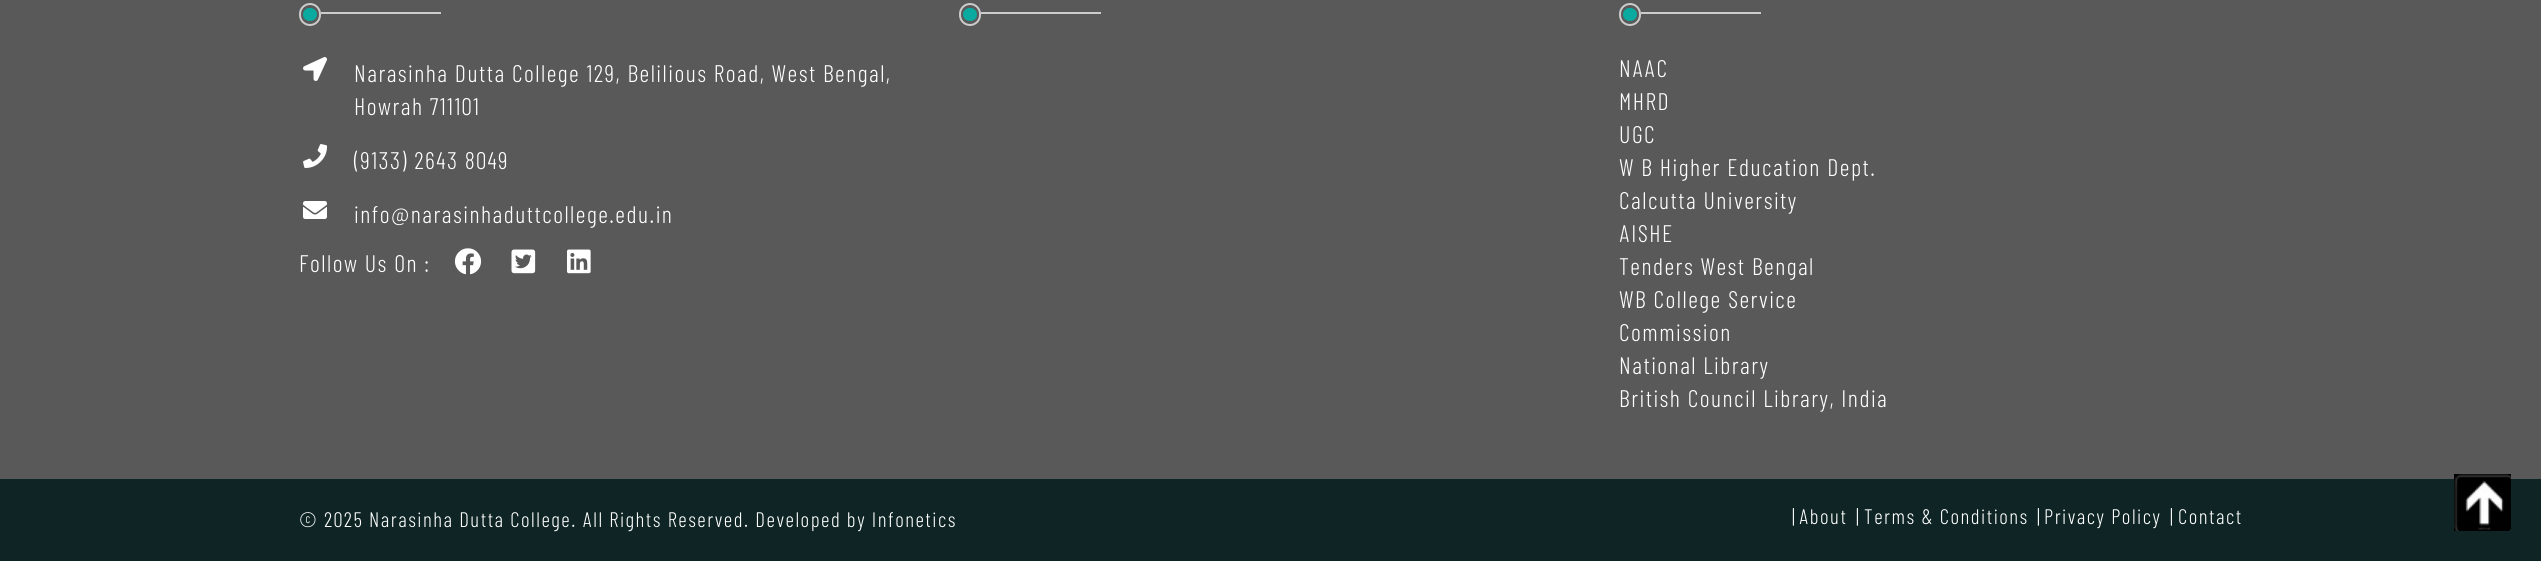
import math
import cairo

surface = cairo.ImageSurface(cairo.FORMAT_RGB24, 2541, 561)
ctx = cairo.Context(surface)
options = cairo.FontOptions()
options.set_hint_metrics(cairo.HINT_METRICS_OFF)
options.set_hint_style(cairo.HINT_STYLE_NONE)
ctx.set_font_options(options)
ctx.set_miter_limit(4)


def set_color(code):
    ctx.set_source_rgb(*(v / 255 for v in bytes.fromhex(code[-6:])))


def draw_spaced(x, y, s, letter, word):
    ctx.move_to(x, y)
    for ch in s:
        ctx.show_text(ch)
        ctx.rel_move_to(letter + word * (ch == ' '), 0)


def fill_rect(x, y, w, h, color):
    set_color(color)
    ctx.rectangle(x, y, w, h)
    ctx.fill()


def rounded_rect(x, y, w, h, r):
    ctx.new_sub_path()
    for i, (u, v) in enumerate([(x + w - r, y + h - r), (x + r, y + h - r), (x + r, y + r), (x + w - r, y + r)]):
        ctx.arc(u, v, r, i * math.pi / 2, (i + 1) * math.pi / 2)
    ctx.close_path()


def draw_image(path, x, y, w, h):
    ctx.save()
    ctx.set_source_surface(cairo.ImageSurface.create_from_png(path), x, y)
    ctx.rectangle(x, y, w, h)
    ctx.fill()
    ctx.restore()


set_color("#595959")
ctx.paint()
rounded_rect(960, 4, 20, 21, 10)
set_color("#cccccc")
ctx.stroke()
set_color("#0aaaa0")
rounded_rect(963, 8, 14, 13, 6.5)
ctx.fill()
fill_rect(981, 12, 120, 2, "#cccccc")
rounded_rect(300, 4, 20, 21, 10)
ctx.stroke()
set_color("#0aaaa0")
rounded_rect(303, 8, 14, 13, 6.5)
ctx.fill()
fill_rect(321, 12, 120, 2, "#cccccc")
draw_image("assets/img1.png", 303, 57, 24, 24)
ctx.select_font_face("Barlow Condensed Light")
ctx.set_font_size(24)
set_color("#ffffff")
draw_spaced(354, 82, "Narasinha Dutta College 129, Belilious Road, West Bengal,", 1.5, 0)
draw_spaced(354, 115, "Howrah 711101", 1.5, 0)
draw_image("assets/img2.png", 303, 144, 25, 24)
draw_spaced(354, 169, "(9133) 2643 8049", 1.5, 0)
draw_image("assets/img3.png", 303, 201, 24, 18)
draw_spaced(354, 223, "info@narasinhaduttcollege.edu.in", 1.5, 0)
draw_spaced(299, 272, "Follow Us On :", 1.5, 0)
draw_image("assets/img4.png", 454, 248, 28, 27)
draw_image("assets/img5.png", 511, 249, 25, 25)
draw_image("assets/img6.png", 567, 249, 24, 25)
rounded_rect(1620, 4, 20, 21, 10)
set_color("#cccccc")
ctx.stroke()
set_color("#0aaaa0")
rounded_rect(1623, 8, 14, 13, 6.5)
ctx.fill()
fill_rect(1641, 12, 120, 2, "#cccccc")
set_color("#ffffff")
draw_spaced(1619, 77, "NAAC", 1.5, 0)
draw_spaced(1619, 110, "MHRD", 1.5, 0)
draw_spaced(1619, 143, "UGC", 1.5, 0)
draw_spaced(1619, 176, "W B Higher Education Dept.", 1.5, 0)
draw_spaced(1619, 209, "Calcutta University", 1.5, 0)
draw_spaced(1619, 242, "AISHE", 1.5, 0)
draw_spaced(1619, 275, "Tenders West Bengal", 1.5, 0)
draw_spaced(1619, 308, "WB College Service", 1.5, 0)
draw_spaced(1619, 341, "Commission", 1.5, 0)
draw_spaced(1619, 374, "National Library", 1.5, 0)
draw_spaced(1619, 407, "British Council Library, India", 1.5, 0)
fill_rect(0, 479, 2541, 82, "#0f2525")
ctx.set_font_size(21)
set_color("#ffffff")
draw_spaced(299, 527, "© 2025 Narasinha Dutta College. All Rights Reserved. Developed by Infonetics", 1.5, 0)
draw_spaced(1792, 524, "|", 1.5, 0)
draw_spaced(1799, 524, "About", 1.5, 0)
draw_spaced(1856, 524, "|", 1.5, 0)
draw_spaced(1864, 524, "Terms & Conditions", 1.5, 0)
draw_spaced(2037, 524, "|", 1.5, 0)
draw_spaced(2044, 524, "Privacy Policy", 1.5, 0)
draw_spaced(2170, 524, "|", 1.5, 0)
draw_spaced(2178, 524, "Contact", 1.5, 0)
draw_image("assets/img7.png", 2454, 474, 57, 57)
surface.write_to_png("output.png")
